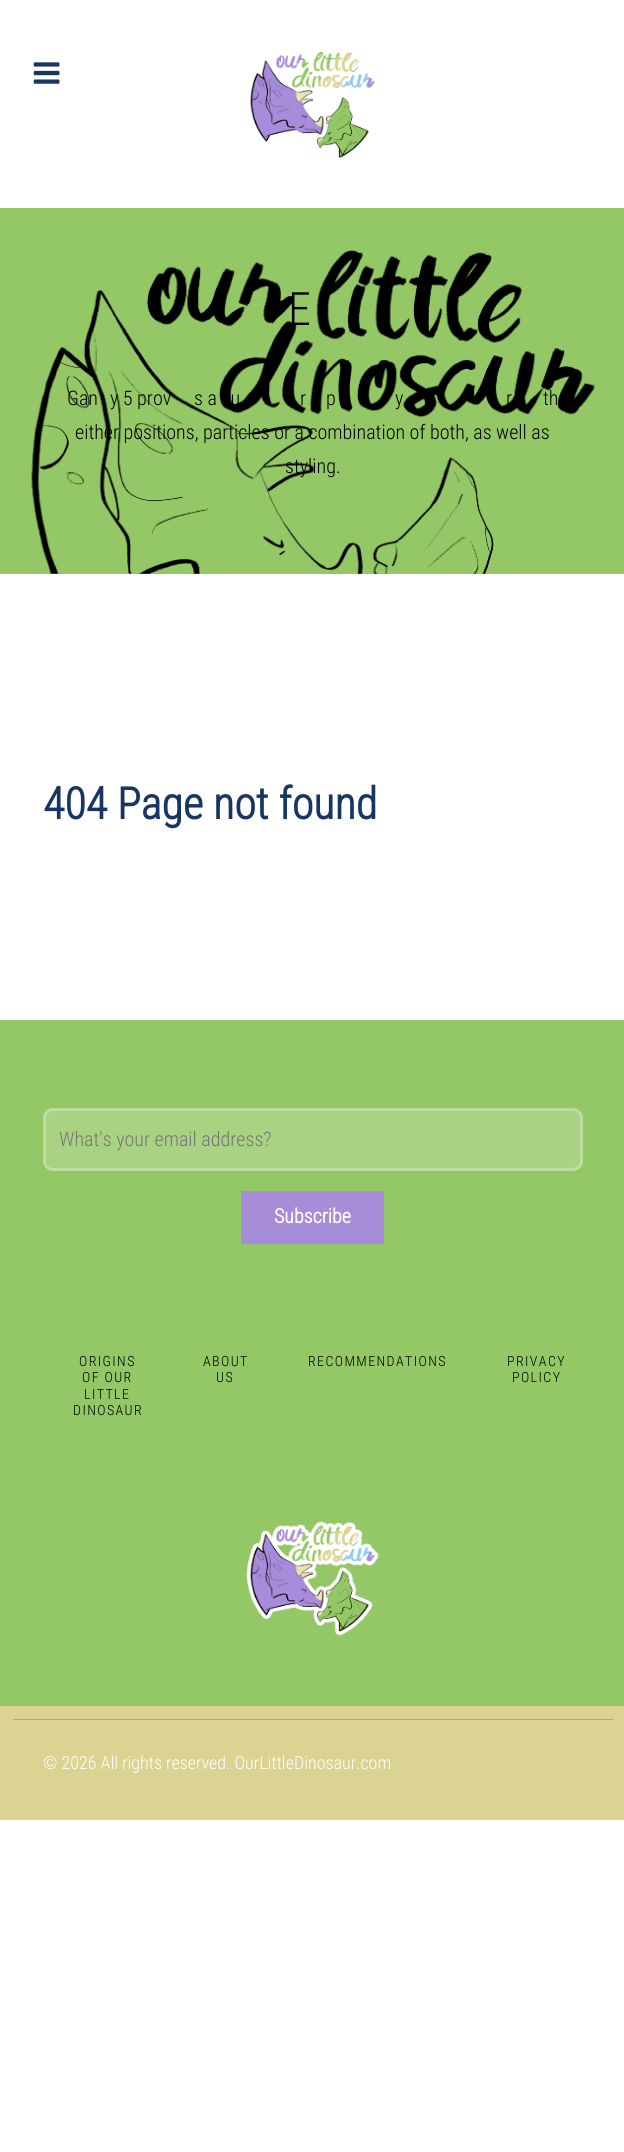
import math
import cairo

surface = cairo.ImageSurface(cairo.FORMAT_RGB24, 624, 2152)
ctx = cairo.Context(surface)
options = cairo.FontOptions()
options.set_hint_metrics(cairo.HINT_METRICS_OFF)
options.set_hint_style(cairo.HINT_STYLE_NONE)
ctx.set_font_options(options)
ctx.set_miter_limit(4)


def set_color(code):
    ctx.set_source_rgb(*(v / 255 for v in bytes.fromhex(code[-6:])))


def draw_text(x, y, s, family, size, color, bold=False, italic=False):
    ctx.select_font_face(family, cairo.FONT_SLANT_ITALIC if italic else cairo.FONT_SLANT_NORMAL, cairo.FONT_WEIGHT_BOLD if bold else cairo.FONT_WEIGHT_NORMAL)
    ctx.set_font_size(size)
    set_color(color)
    ctx.move_to(x, y)
    ctx.show_text(s)


def draw_spaced(x, y, s, letter, word):
    ctx.move_to(x, y)
    for ch in s:
        ctx.show_text(ch)
        ctx.rel_move_to(letter + word * (ch == ' '), 0)


def fill_rect(x, y, w, h, color):
    set_color(color)
    ctx.rectangle(x, y, w, h)
    ctx.fill()


def rounded_rect(x, y, w, h, r):
    ctx.new_sub_path()
    for i, (u, v) in enumerate([(x + w - r, y + h - r), (x + r, y + h - r), (x + r, y + r), (x + w - r, y + r)]):
        ctx.arc(u, v, r, i * math.pi / 2, (i + 1) * math.pi / 2)
    ctx.close_path()


def draw_image(path, x, y, w, h):
    ctx.save()
    ctx.set_source_surface(cairo.ImageSurface.create_from_png(path), x, y)
    ctx.rectangle(x, y, w, h)
    ctx.fill()
    ctx.restore()


set_color("#ffffff")
ctx.paint()
draw_image("assets/img1.png", 33, 62, 27, 22)
draw_image("assets/img2.png", 250, 51, 125, 107)
fill_rect(0, 208, 624, 366, "#94c765")
draw_image("assets/img3.png", 31, 250, 564, 324)
draw_text(288, 325, "E", "Roboto Condensed Light", 46, "#000000")
draw_text(67, 405, "Gan", "Roboto Condensed Light", 20, "#000000")
draw_text(110, 405, "y 5 prov", "Roboto Condensed Light", 20, "#000000")
draw_text(194, 405, "s a cu", "Roboto Condensed Light", 20, "#000000")
draw_text(300, 405, "r", "Roboto Condensed Light", 20, "#000000")
draw_text(326, 405, "p", "Roboto Condensed Light", 20, "#000000")
draw_text(395, 405, "y", "Roboto Condensed Light", 20, "#000000")
draw_text(506, 405, "r", "Roboto Condensed Light", 20, "#000000")
draw_text(543, 405, "th", "Roboto Condensed Light", 20, "#000000")
draw_text(75, 439, "either positions, particles or a combination of both, as well as", "Roboto Condensed Light", 20, "#000000")
draw_text(285, 473, "styling.", "Roboto Condensed Light", 20, "#000000")
draw_text(43, 819, "404 Page not found", "Roboto Condensed", 44, "#193564", bold=True)
fill_rect(0, 1020, 624, 686, "#94c765")
set_color("#a9d283")
rounded_rect(44.5, 1109.5, 537, 60, 8.5)
ctx.fill_preserve()
set_color("#bedda1")
ctx.set_line_width(3)
ctx.stroke()
draw_text(59, 1146, "What's your email address?", "Roboto Condensed Light", 20, "#757575")
fill_rect(241, 1191, 143, 53, "#a78cda")
draw_text(274, 1223, "Subscribe", "Roboto Condensed", 20, "#ffffff", bold=True)
ctx.select_font_face("Roboto Condensed Light")
ctx.set_font_size(14)
set_color("#000000")
draw_spaced(79, 1366, "ORIGINS", 1.4, 0)
draw_spaced(82, 1382, "OF OUR", 1.4, 0)
draw_spaced(84, 1399, "LITTLE", 1.4, 0)
draw_spaced(73, 1415, "DINOSAUR", 1.4, 0)
draw_spaced(203, 1366, "ABOUT", 1.4, 0)
draw_spaced(216, 1382, "US", 1.4, 0)
draw_spaced(308, 1366, "RECOMMENDATIONS", 1.4, 0)
draw_spaced(507, 1366, "PRIVACY", 1.4, 0)
draw_spaced(512, 1382, "POLICY", 1.4, 0)
draw_image("assets/img4.png", 246, 1521, 133, 115)
fill_rect(0, 1706, 624, 114, "#dbd391")
fill_rect(13, 1719, 600, 1, "#afa974")
draw_text(43, 1769, "© 2026 All rights reserved. OurLittleDinosaur.com", "Roboto Condensed Light", 18, "#ffffff")
surface.write_to_png("output.png")
